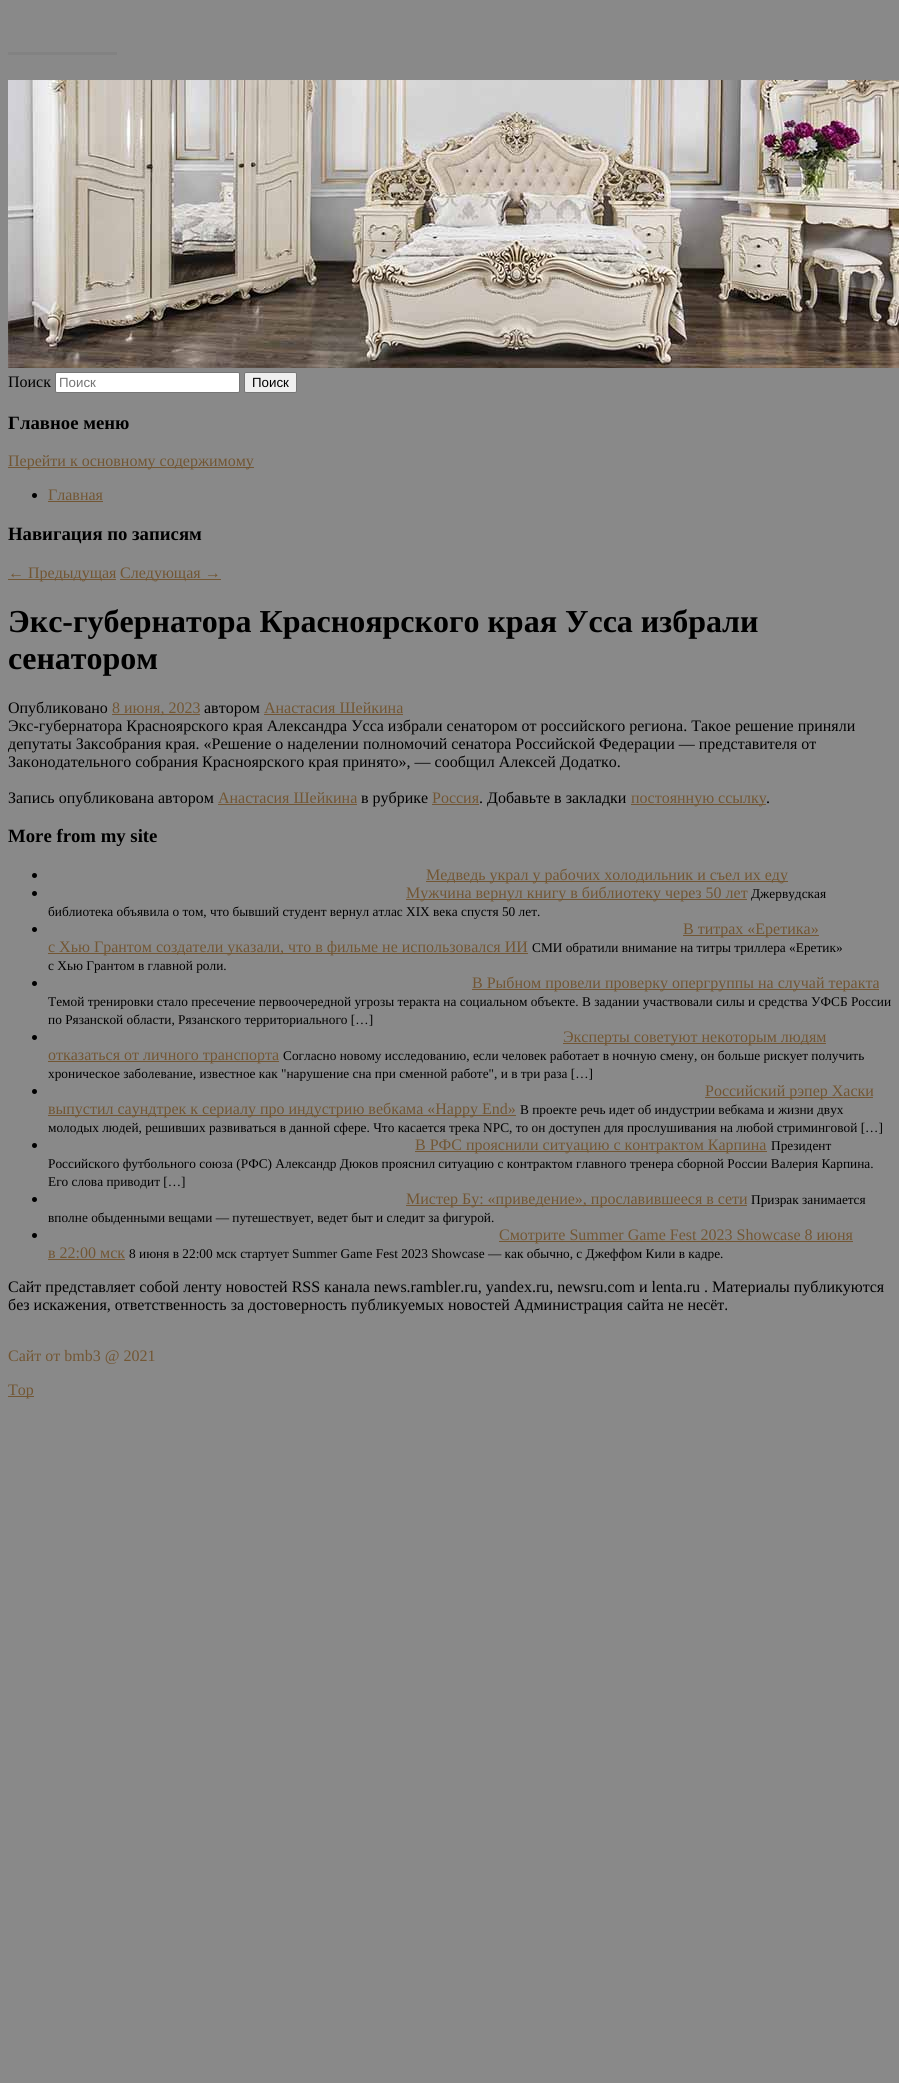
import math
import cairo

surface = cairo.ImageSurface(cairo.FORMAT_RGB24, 899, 2083)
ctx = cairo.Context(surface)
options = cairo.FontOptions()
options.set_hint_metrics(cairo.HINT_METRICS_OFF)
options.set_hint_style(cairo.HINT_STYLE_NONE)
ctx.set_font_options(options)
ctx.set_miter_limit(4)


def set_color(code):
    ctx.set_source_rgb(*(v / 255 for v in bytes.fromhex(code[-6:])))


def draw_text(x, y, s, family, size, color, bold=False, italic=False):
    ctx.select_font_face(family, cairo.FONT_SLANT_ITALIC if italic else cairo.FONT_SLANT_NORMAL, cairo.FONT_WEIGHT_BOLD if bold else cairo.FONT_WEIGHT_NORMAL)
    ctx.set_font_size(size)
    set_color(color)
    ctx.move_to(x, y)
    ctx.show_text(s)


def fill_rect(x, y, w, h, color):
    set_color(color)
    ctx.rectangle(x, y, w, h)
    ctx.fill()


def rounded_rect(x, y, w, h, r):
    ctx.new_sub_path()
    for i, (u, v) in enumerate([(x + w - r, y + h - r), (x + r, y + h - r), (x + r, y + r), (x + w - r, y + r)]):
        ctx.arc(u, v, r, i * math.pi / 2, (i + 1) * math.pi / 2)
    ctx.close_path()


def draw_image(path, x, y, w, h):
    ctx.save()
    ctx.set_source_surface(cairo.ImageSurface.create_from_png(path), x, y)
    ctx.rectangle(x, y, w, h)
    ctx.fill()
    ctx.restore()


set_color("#898989")
ctx.paint()
fill_rect(8, 52, 109, 3, "#828282")
draw_image("assets/img1.png", 8, 80, 891, 288)
draw_text(8, 387, "Поиск", "Liberation Serif", 16, "#000000")
set_color("#ffffff")
rounded_rect(55.5, 372.5, 184, 20, 1.5)
ctx.fill_preserve()
set_color("#767676")
ctx.set_line_width(1)
ctx.stroke()
draw_text(59, 387, "Поиск", "Liberation Sans", 13.33, "#757575")
set_color("#efefef")
rounded_rect(244.5, 372.5, 52, 20, 1.5)
ctx.fill_preserve()
set_color("#767676")
ctx.stroke()
draw_text(252, 387, "Поиск", "Liberation Sans", 13.33, "#000000")
draw_text(8, 429, "Главное меню", "Liberation Serif", 18.75, "#000000", bold=True)
fill_rect(8, 467, 246, 1, "#725633")
draw_text(8, 466, "Перейти к основному содержимому", "Liberation Serif", 16, "#725633")
set_color("#000000")
ctx.new_path()
ctx.arc(34.5, 495.5, 2.5, 0, 2 * math.pi)
ctx.fill()
draw_text(48, 500, "Главная", "Liberation Serif", 16, "#725633")
fill_rect(48, 501, 55, 1, "#725633")
draw_text(8, 540, "Навигация по записям", "Liberation Serif", 18.75, "#000000", bold=True)
fill_rect(8, 579, 108, 1, "#725633")
draw_text(8, 578, "← Предыдущая", "Liberation Serif", 16, "#725633")
fill_rect(120, 579, 101, 1, "#725633")
draw_text(120, 578, "Следующая →", "Liberation Serif", 16, "#725633")
draw_text(8, 632, "Экс-губернатора Красноярского края Усса избрали", "Liberation Serif", 32, "#000000", bold=True)
draw_text(8, 669, "сенатором", "Liberation Serif", 32, "#000000", bold=True)
draw_text(8, 713, "Опубликовано", "Liberation Serif", 16, "#000000")
fill_rect(112, 714, 88, 1, "#725633")
draw_text(112, 713, "8 июня, 2023", "Liberation Serif", 16, "#725633")
draw_text(204, 713, "автором", "Liberation Serif", 16, "#000000")
fill_rect(264, 714, 139, 1, "#725633")
draw_text(264, 713, "Анастасия Шейкина", "Liberation Serif", 16, "#725633")
draw_text(8, 731, "Экс-губернатора Красноярского края Александра Усса избрали сенатором от российского региона. Такое решение приняли", "Liberation Serif", 16, "#000000")
draw_text(8, 749, "депутаты Заксобрания края. «Решение о наделении полномочий сенатора Российской Федерации — представителя от", "Liberation Serif", 16, "#000000")
draw_text(8, 767, "Законодательного собрания Красноярского края принято», — сообщил Алексей Додатко.", "Liberation Serif", 16, "#000000")
draw_text(8, 803, "Запись опубликована автором", "Liberation Serif", 16, "#000000")
draw_text(218, 803, "Анастасия Шейкина", "Liberation Serif", 16, "#725633")
fill_rect(218, 804, 139, 1, "#725633")
draw_text(361, 803, "в рубрике", "Liberation Serif", 16, "#000000")
draw_text(432, 803, "Россия", "Liberation Serif", 16, "#725633")
fill_rect(432, 804, 47, 1, "#725633")
draw_text(479, 803, ". Добавьте в закладки", "Liberation Serif", 16, "#000000")
fill_rect(631, 804, 135, 1, "#725633")
draw_text(631, 803, "постоянную ссылку", "Liberation Serif", 16, "#725633")
draw_text(766, 803, ".", "Liberation Serif", 16, "#000000")
draw_text(8, 842, "More from my site", "Liberation Serif", 18.75, "#000000", bold=True)
ctx.new_path()
ctx.arc(34.5, 875.5, 2.5, 0, 2 * math.pi)
ctx.fill()
fill_rect(426, 881, 362, 1, "#725633")
draw_text(426, 880, "Медведь украл у рабочих холодильник и съел их еду", "Liberation Serif", 16, "#725633")
set_color("#000000")
ctx.new_path()
ctx.arc(34.5, 893.5, 2.5, 0, 2 * math.pi)
ctx.fill()
fill_rect(406, 899, 341, 1, "#725633")
draw_text(406, 898, "Мужчина вернул книгу в библиотеку через 50 лет", "Liberation Serif", 16, "#725633")
draw_text(751, 898, "Джервудская", "Liberation Serif", 13.33, "#000000")
draw_text(48, 916, "библиотека объявила о том, что бывший студент вернул атлас XIX века спустя 50 лет.", "Liberation Serif", 13.33, "#000000")
ctx.new_path()
ctx.arc(34.5, 929.5, 2.5, 0, 2 * math.pi)
ctx.fill()
fill_rect(683, 935, 136, 1, "#725633")
draw_text(683, 934, "В титрах «Еретика»", "Liberation Serif", 16, "#725633")
fill_rect(48, 953, 480, 1, "#725633")
draw_text(48, 952, "с Хью Грантом создатели указали, что в фильме не использовался ИИ", "Liberation Serif", 16, "#725633")
draw_text(532, 952, "СМИ обратили внимание на титры триллера «Еретик»", "Liberation Serif", 13.33, "#000000")
draw_text(48, 970, "с Хью Грантом в главной роли.", "Liberation Serif", 13.33, "#000000")
ctx.new_path()
ctx.arc(34.5, 983.5, 2.5, 0, 2 * math.pi)
ctx.fill()
fill_rect(472, 989, 407, 1, "#725633")
draw_text(472, 988, "В Рыбном провели проверку опергруппы на случай теракта", "Liberation Serif", 16, "#725633")
draw_text(48, 1006, "Темой тренировки стало пресечение первоочередной угрозы теракта на социальном объекте. В задании участвовали силы и средства УФСБ России", "Liberation Serif", 13.33, "#000000")
draw_text(48, 1024, "по Рязанской области, Рязанского территориального […]", "Liberation Serif", 13.33, "#000000")
ctx.new_path()
ctx.arc(34.5, 1037.5, 2.5, 0, 2 * math.pi)
ctx.fill()
fill_rect(563, 1043, 263, 1, "#725633")
draw_text(563, 1042, "Эксперты советуют некоторым людям", "Liberation Serif", 16, "#725633")
fill_rect(48, 1061, 231, 1, "#725633")
draw_text(48, 1060, "отказаться от личного транспорта", "Liberation Serif", 16, "#725633")
draw_text(283, 1060, "Согласно новому исследованию, если человек работает в ночную смену, он больше рискует получить", "Liberation Serif", 13.33, "#000000")
draw_text(48, 1078, "хроническое заболевание, известное как \"нарушение сна при сменной работе\", и в три раза […]", "Liberation Serif", 13.33, "#000000")
ctx.new_path()
ctx.arc(34.5, 1091.5, 2.5, 0, 2 * math.pi)
ctx.fill()
fill_rect(705, 1097, 168, 1, "#725633")
draw_text(705, 1096, "Российский рэпер Хаски", "Liberation Serif", 16, "#725633")
fill_rect(48, 1115, 468, 1, "#725633")
draw_text(48, 1114, "выпустил саундтрек к сериалу про индустрию вебкама «Happy End»", "Liberation Serif", 16, "#725633")
draw_text(520, 1114, "В проекте речь идет об индустрии вебкама и жизни двух", "Liberation Serif", 13.33, "#000000")
draw_text(48, 1132, "молодых людей, решивших развиваться в данной сфере. Что касается трека NPC, то он доступен для прослушивания на любой стриминговой […]", "Liberation Serif", 13.33, "#000000")
ctx.new_path()
ctx.arc(34.5, 1145.5, 2.5, 0, 2 * math.pi)
ctx.fill()
fill_rect(415, 1151, 352, 1, "#725633")
draw_text(415, 1150, "В РФС прояснили ситуацию с контрактом Карпина", "Liberation Serif", 16, "#725633")
draw_text(771, 1150, "Президент", "Liberation Serif", 13.33, "#000000")
draw_text(48, 1168, "Российского футбольного союза (РФС) Александр Дюков прояснил ситуацию с контрактом главного тренера сборной России Валерия Карпина.", "Liberation Serif", 13.33, "#000000")
draw_text(48, 1186, "Его слова приводит […]", "Liberation Serif", 13.33, "#000000")
ctx.new_path()
ctx.arc(34.5, 1199.5, 2.5, 0, 2 * math.pi)
ctx.fill()
fill_rect(406, 1205, 341, 1, "#725633")
draw_text(406, 1204, "Мистер Бу: «приведение», прославившееся в сети", "Liberation Serif", 16, "#725633")
draw_text(751, 1204, "Призрак занимается", "Liberation Serif", 13.33, "#000000")
draw_text(48, 1222, "вполне обыденными вещами — путешествует, ведет быт и следит за фигурой.", "Liberation Serif", 13.33, "#000000")
ctx.new_path()
ctx.arc(34.5, 1235.5, 2.5, 0, 2 * math.pi)
ctx.fill()
fill_rect(499, 1241, 354, 1, "#725633")
draw_text(499, 1240, "Смотрите Summer Game Fest 2023 Showcase 8 июня", "Liberation Serif", 16, "#725633")
draw_text(48, 1258, "в 22:00 мск", "Liberation Serif", 16, "#725633")
fill_rect(48, 1259, 77, 1, "#725633")
draw_text(129, 1258, "8 июня в 22:00 мск стартует Summer Game Fest 2023 Showcase — как обычно, с Джеффом Кили в кадре.", "Liberation Serif", 13.33, "#000000")
draw_text(8, 1292, "Сайт представляет собой ленту новостей RSS канала news.rambler.ru, yandex.ru, newsru.com и lenta.ru . Материалы публикуются", "Liberation Serif", 16, "#000000")
draw_text(8, 1310, "без искажения, ответственность за достоверность публикуемых новостей Администрация сайта не несёт.", "Liberation Serif", 16, "#000000")
draw_text(8, 1361, "Сайт от bmb3 @ 2021", "Liberation Serif", 16, "#725633")
fill_rect(8, 1396, 26, 1, "#725633")
draw_text(8, 1395, "Top", "Liberation Serif", 16, "#725633")
surface.write_to_png("output.png")
